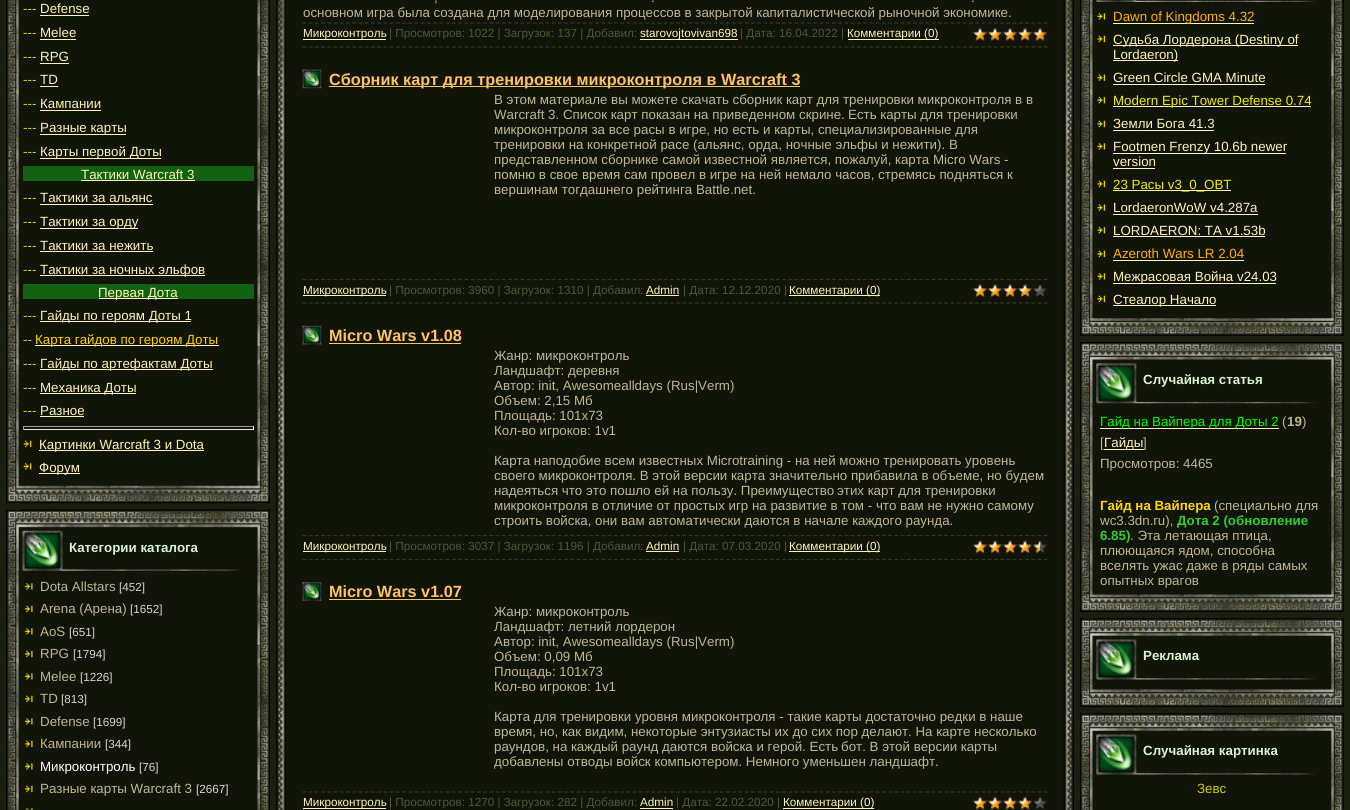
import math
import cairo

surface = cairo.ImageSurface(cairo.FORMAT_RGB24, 1350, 810)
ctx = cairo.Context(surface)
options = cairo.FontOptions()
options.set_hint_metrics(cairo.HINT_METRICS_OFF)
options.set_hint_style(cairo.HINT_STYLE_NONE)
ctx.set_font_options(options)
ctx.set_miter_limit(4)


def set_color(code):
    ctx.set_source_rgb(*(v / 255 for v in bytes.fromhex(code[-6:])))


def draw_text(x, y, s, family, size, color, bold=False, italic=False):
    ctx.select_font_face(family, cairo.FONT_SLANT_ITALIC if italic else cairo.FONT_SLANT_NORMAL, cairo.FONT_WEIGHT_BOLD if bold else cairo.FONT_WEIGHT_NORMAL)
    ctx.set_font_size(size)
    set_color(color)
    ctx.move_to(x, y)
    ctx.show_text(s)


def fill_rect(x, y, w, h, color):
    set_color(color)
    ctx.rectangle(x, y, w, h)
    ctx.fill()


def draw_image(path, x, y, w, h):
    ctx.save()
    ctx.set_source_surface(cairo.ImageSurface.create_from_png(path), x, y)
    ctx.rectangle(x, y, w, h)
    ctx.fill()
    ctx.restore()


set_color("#1b1f0e")
ctx.paint()
draw_image("assets/img1.png", 6, 0, 264, 504)
draw_image("assets/img2.png", 6, 485, 264, 19)
draw_text(23, 13, "---", "Liberation Sans", 13.33, "#cfcf00")
draw_text(40, 13, "Defense", "Liberation Sans", 13.33, "#fef3b8")
fill_rect(40, 15, 49, 1, "#fef3b8")
draw_text(23, 37, "---", "Liberation Sans", 13.33, "#cfcf00")
draw_text(40, 37, "Melee", "Liberation Sans", 13.33, "#fef3b8")
fill_rect(40, 39, 36, 1, "#fef3b8")
draw_text(23, 61, "---", "Liberation Sans", 13.33, "#cfcf00")
draw_text(40, 61, "RPG", "Liberation Sans", 13.33, "#fef3b8")
fill_rect(40, 63, 29, 1, "#fef3b8")
draw_text(23, 84, "---", "Liberation Sans", 13.33, "#cfcf00")
draw_text(40, 84, "TD", "Liberation Sans", 13.33, "#fef3b8")
fill_rect(40, 86, 18, 1, "#fef3b8")
draw_text(23, 108, "---", "Liberation Sans", 13.33, "#cfcf00")
draw_text(40, 108, "Кампании", "Liberation Sans", 13.33, "#fef3b8")
fill_rect(40, 110, 61, 1, "#fef3b8")
draw_text(23, 132, "---", "Liberation Sans", 13.33, "#cfcf00")
fill_rect(40, 134, 86, 1, "#fef3b8")
draw_text(40, 132, "Разные карты", "Liberation Sans", 13.33, "#fef3b8")
draw_text(23, 156, "---", "Liberation Sans", 13.33, "#cfcf00")
fill_rect(40, 158, 121, 1, "#fef3b8")
draw_text(40, 156, "Карты первой Доты", "Liberation Sans", 13.33, "#fef3b8")
fill_rect(23, 166, 231, 15, "#116111")
draw_text(81, 179, "Тактики Warcraft 3", "Liberation Sans", 13.33, "#fef3b8")
fill_rect(81, 180, 114, 1, "#fef3b8")
draw_text(23, 202, "---", "Liberation Sans", 13.33, "#cfcf00")
draw_text(40, 202, "Тактики за альянс", "Liberation Sans", 13.33, "#fef3b8")
fill_rect(40, 204, 113, 1, "#fef3b8")
draw_text(23, 226, "---", "Liberation Sans", 13.33, "#cfcf00")
fill_rect(40, 228, 98, 1, "#fef3b8")
draw_text(40, 226, "Тактики за орду", "Liberation Sans", 13.33, "#fef3b8")
draw_text(23, 250, "---", "Liberation Sans", 13.33, "#cfcf00")
draw_text(40, 250, "Тактики за нежить", "Liberation Sans", 13.33, "#fef3b8")
fill_rect(40, 251, 113, 1, "#fef3b8")
draw_text(23, 274, "---", "Liberation Sans", 13.33, "#cfcf00")
fill_rect(40, 275, 165, 1, "#fef3b8")
draw_text(40, 274, "Тактики за ночных эльфов", "Liberation Sans", 13.33, "#fef3b8")
fill_rect(23, 284, 231, 15, "#116111")
fill_rect(99, 298, 79, 1, "#fef3b8")
draw_text(98, 297, "Первая Дота", "Liberation Sans", 13.33, "#fef3b8")
draw_text(23, 320, "---", "Liberation Sans", 13.33, "#cfcf00")
fill_rect(40, 321, 151, 1, "#fef3b8")
draw_text(40, 320, "Гайды по героям Доты 1", "Liberation Sans", 13.33, "#fef3b8")
draw_text(23, 344, "--", "Liberation Sans", 13.33, "#cfcf00")
fill_rect(35, 345, 184, 1, "#fef3b8")
draw_text(35, 344, "Карта гайдов по героям Доты", "Liberation Sans", 13.33, "#ffd000")
draw_text(23, 368, "---", "Liberation Sans", 13.33, "#cfcf00")
fill_rect(40, 369, 173, 1, "#fef3b8")
draw_text(40, 368, "Гайды по артефактам Доты", "Liberation Sans", 13.33, "#fef3b8")
draw_text(23, 392, "---", "Liberation Sans", 13.33, "#cfcf00")
fill_rect(40, 393, 96, 1, "#fef3b8")
draw_text(40, 392, "Механика Доты", "Liberation Sans", 13.33, "#fef3b8")
draw_text(23, 415, "---", "Liberation Sans", 13.33, "#cfcf00")
draw_text(40, 415, "Разное", "Liberation Sans", 13.33, "#fef3b8")
fill_rect(40, 416, 44, 1, "#fef3b8")
fill_rect(23, 426, 231, 1, "#9f9f9f")
fill_rect(253, 426, 1, 4, "#eeeeee")
fill_rect(23, 429, 231, 1, "#eeeeee")
fill_rect(23, 426, 1, 4, "#9f9f9f")
draw_image("assets/img3.png", 23, 440, 9, 8)
fill_rect(39, 450, 165, 1, "#fef3b8")
draw_text(39, 449, "Картинки Warcraft 3 и Dota", "Liberation Sans", 13.33, "#fef3b8")
draw_image("assets/img4.png", 23, 463, 9, 7)
fill_rect(39, 473, 41, 1, "#fef3b8")
draw_text(39, 472, "Форум", "Liberation Sans", 13.33, "#fef3b8")
draw_image("assets/img5.png", 6, 509, 264, 301)
draw_image("assets/img6.png", 6, 509, 264, 62)
draw_text(69, 552, "Категории каталога", "Liberation Sans", 13.33, "#d8f4c8", bold=True)
draw_image("assets/img7.png", 24, 583, 9, 7)
draw_text(40, 591, "Dota Allstars", "Liberation Sans", 13.33, "#bfb792")
draw_text(119, 591, "[452]", "Liberation Sans", 11.7, "#d8d5d5")
draw_image("assets/img8.png", 24, 605, 9, 8)
draw_text(40, 613, "Arena (Арена)", "Liberation Sans", 13.33, "#bfb792")
draw_text(130, 613, "[1652]", "Liberation Sans", 11.7, "#d8d5d5")
draw_image("assets/img7.png", 24, 628, 9, 7)
draw_text(40, 636, "AoS", "Liberation Sans", 13.33, "#bfb792")
draw_text(69, 636, "[651]", "Liberation Sans", 11.7, "#d8d5d5")
draw_image("assets/img9.png", 24, 650, 9, 8)
draw_text(40, 658, "RPG", "Liberation Sans", 13.33, "#bfb792")
draw_text(73, 658, "[1794]", "Liberation Sans", 11.7, "#d8d5d5")
draw_image("assets/img7.png", 24, 673, 9, 7)
draw_text(40, 681, "Melee", "Liberation Sans", 13.33, "#bfb792")
draw_text(80, 681, "[1226]", "Liberation Sans", 11.7, "#d8d5d5")
draw_image("assets/img8.png", 24, 695, 9, 8)
draw_text(40, 703, "TD", "Liberation Sans", 13.33, "#bfb792")
draw_text(61, 703, "[813]", "Liberation Sans", 11.7, "#d8d5d5")
draw_image("assets/img7.png", 24, 718, 9, 7)
draw_text(40, 726, "Defense", "Liberation Sans", 13.33, "#bfb792")
draw_text(93, 726, "[1699]", "Liberation Sans", 11.7, "#d8d5d5")
draw_image("assets/img8.png", 24, 740, 9, 8)
draw_text(40, 748, "Кампании", "Liberation Sans", 13.33, "#bfb792")
draw_text(105, 748, "[344]", "Liberation Sans", 11.7, "#d8d5d5")
draw_image("assets/img7.png", 24, 763, 9, 7)
draw_text(40, 771, "Микроконтроль", "Liberation Sans", 13.33, "#ffffff")
draw_text(139, 771, "[76]", "Liberation Sans", 11.7, "#d8d5d5")
draw_image("assets/img8.png", 24, 785, 9, 8)
draw_text(40, 793, "Разные карты Warcraft 3", "Liberation Sans", 13.33, "#bfb792")
draw_text(196, 793, "[2667]", "Liberation Sans", 11.7, "#d8d5d5")
draw_image("assets/img10.png", 26, 808, 7, 2)
draw_image("assets/img11.png", 276, 0, 10, 810)
fill_rect(286, 0, 778, 810, "#111409")
draw_text(434, 2, ",", "Liberation Sans", 13.33, "#bfb792")
draw_text(651, 2, ".", "Liberation Sans", 13.33, "#bfb792")
draw_text(971, 2, ".", "Liberation Sans", 13.33, "#bfb792")
draw_text(303, 17, "основном игра была создана для моделирования процессов в закрытой капиталистической рыночной экономике.", "Liberation Sans", 13.33, "#bfb792")
ctx.new_path()
ctx.move_to(302.5, 23)
ctx.line_to(1047.5, 23)
set_color("#2e3b21")
ctx.set_line_width(1.2)
ctx.set_dash([3.75, 2.48])
ctx.stroke()
ctx.new_path()
ctx.move_to(302.5, 47)
ctx.line_to(1047.5, 47)
ctx.stroke()
fill_rect(303, 39, 83, 1, "#fef3b8")
draw_text(303, 37, "Микроконтроль", "Liberation Sans", 11.7, "#fef3b8")
draw_text(389, 37, "| Просмотров: 1022 | Загрузок: 137 | Добавил:", "Liberation Sans", 11.7, "#475b33")
fill_rect(640, 39, 98, 1, "#fef3b8")
draw_text(640, 37, "starovojtovivan698", "Liberation Sans", 11.7, "#fef3b8")
draw_text(740, 37, "| Дата: 16.04.2022 |", "Liberation Sans", 11.7, "#475b33")
fill_rect(848, 39, 91, 1, "#fef3b8")
draw_text(847, 37, "Комментарии (0)", "Liberation Sans", 11.7, "#fef3b8")
draw_image("assets/img12.png", 973, 28, 74, 13)
draw_image("assets/img13.png", 972, 27, 76, 14)
draw_image("assets/img14.png", 302, 69, 20, 20)
fill_rect(329, 86, 471, 1, "#ffc165")
draw_text(329, 85, "Сборник карт для тренировки микроконтроля в Warcraft 3", "Liberation Sans", 16.25, "#ffc165", bold=True)
draw_text(494, 104, "В этом материале вы можете скачать сборник карт для тренировки микроконтроля в в", "Liberation Sans", 13.33, "#bfb792")
draw_text(494, 119, "Warcraft 3. Список карт показан на приведенном скрине.", "Liberation Sans", 13.33, "#bfb792")
draw_text(848, 119, "Есть карты для тренировки", "Liberation Sans", 13.33, "#bfb792")
draw_text(494, 134, "микроконтроля за все расы в игре, но есть и карты, специализированные для", "Liberation Sans", 13.33, "#bfb792")
draw_text(494, 149, "тренировки на конкретной расе (альянс, орда, ночные эльфы и нежити). В", "Liberation Sans", 13.33, "#bfb792")
draw_text(494, 164, "представленном сборнике самой известной является, пожалуй, карта Micro Wars -", "Liberation Sans", 13.33, "#bfb792")
draw_text(494, 179, "помню в свое время сам провел в игре на ней немало часов, стремясь подняться к", "Liberation Sans", 13.33, "#bfb792")
draw_text(494, 194, "вершинам тогдашнего рейтинга Battle.net.", "Liberation Sans", 13.33, "#bfb792")
ctx.new_path()
ctx.move_to(302.5, 279.5)
ctx.line_to(1047.5, 279.5)
set_color("#2e3b21")
ctx.stroke()
ctx.new_path()
ctx.move_to(302.5, 303)
ctx.line_to(1047.5, 303)
ctx.stroke()
fill_rect(303, 295, 83, 1, "#fef3b8")
draw_text(303, 294, "Микроконтроль", "Liberation Sans", 11.7, "#fef3b8")
draw_text(389, 294, "| Просмотров: 3960 | Загрузок: 1310 | Добавил:", "Liberation Sans", 11.7, "#475b33")
draw_text(646, 294, "Admin", "Liberation Sans", 11.7, "#fef3b8")
fill_rect(646, 295, 33, 1, "#fef3b8")
draw_text(683, 294, "| Дата: 12.12.2020 |", "Liberation Sans", 11.7, "#475b33")
fill_rect(789, 295, 91, 1, "#fef3b8")
draw_text(789, 294, "Комментарии (0)", "Liberation Sans", 11.7, "#fef3b8")
draw_image("assets/img15.png", 973, 284, 74, 13)
draw_image("assets/img16.png", 972, 284, 61, 14)
draw_image("assets/img17.png", 302, 325, 20, 20)
draw_text(329, 341, "Micro Wars v1.08", "Liberation Sans", 16.25, "#ffc165", bold=True)
fill_rect(329, 343, 132, 1, "#ffc165")
draw_text(494, 360, "Жанр: микроконтроль", "Liberation Sans", 13.33, "#bfb792")
draw_text(494, 375, "Ландшафт: деревня", "Liberation Sans", 13.33, "#bfb792")
draw_text(494, 390, "Автор: init, Awesomealldays (Rus|Verm)", "Liberation Sans", 13.33, "#bfb792")
draw_text(494, 405, "Объем: 2,15 Мб", "Liberation Sans", 13.33, "#bfb792")
draw_text(494, 420, "Площадь: 101x73", "Liberation Sans", 13.33, "#bfb792")
draw_text(494, 435, "Кол-во игроков: 1v1", "Liberation Sans", 13.33, "#bfb792")
draw_text(494, 465, "Карта наподобие всем известных Microtraining - на ней можно тренировать уровень", "Liberation Sans", 13.33, "#bfb792")
draw_text(494, 480, "своего микроконтроля. В этой версии карта значительно прибавила в объеме, но будем", "Liberation Sans", 13.33, "#bfb792")
draw_text(494, 495, "надеяться что это пошло ей на пользу. Преимущество", "Liberation Sans", 13.33, "#bfb792")
draw_text(837, 495, "этих карт для тренировки", "Liberation Sans", 13.33, "#bfb792")
draw_text(494, 510, "микроконтроля в отличие от простых игр на развитие в том - что вам не нужно самому", "Liberation Sans", 13.33, "#bfb792")
draw_text(494, 525, "строить войска, они вам автоматически даются в начале каждого раунда.", "Liberation Sans", 13.33, "#bfb792")
ctx.new_path()
ctx.move_to(302.5, 535.5)
ctx.line_to(1047.5, 535.5)
set_color("#2e3b21")
ctx.stroke()
ctx.new_path()
ctx.move_to(302.5, 559.5)
ctx.line_to(1047.5, 559.5)
ctx.stroke()
fill_rect(303, 551, 83, 1, "#fef3b8")
draw_text(303, 550, "Микроконтроль", "Liberation Sans", 11.7, "#fef3b8")
draw_text(389, 550, "| Просмотров: 3037 | Загрузок: 1196 | Добавил:", "Liberation Sans", 11.7, "#475b33")
draw_text(646, 550, "Admin", "Liberation Sans", 11.7, "#fef3b8")
fill_rect(646, 551, 33, 1, "#fef3b8")
draw_text(683, 550, "| Дата: 07.03.2020 |", "Liberation Sans", 11.7, "#475b33")
fill_rect(789, 551, 91, 1, "#fef3b8")
draw_text(789, 550, "Комментарии (0)", "Liberation Sans", 11.7, "#fef3b8")
draw_image("assets/img18.png", 973, 540, 74, 14)
draw_image("assets/img19.png", 972, 540, 68, 14)
draw_image("assets/img20.png", 302, 582, 20, 19)
draw_text(329, 597, "Micro Wars v1.07", "Liberation Sans", 16.25, "#ffc165", bold=True)
fill_rect(329, 599, 132, 1, "#ffc165")
draw_text(494, 616, "Жанр: микроконтроль", "Liberation Sans", 13.33, "#bfb792")
draw_text(494, 631, "Ландшафт: летний лордерон", "Liberation Sans", 13.33, "#bfb792")
draw_text(494, 646, "Автор: init, Awesomealldays (Rus|Verm)", "Liberation Sans", 13.33, "#bfb792")
draw_text(494, 661, "Объем: 0,09 Мб", "Liberation Sans", 13.33, "#bfb792")
draw_text(494, 676, "Площадь: 101x73", "Liberation Sans", 13.33, "#bfb792")
draw_text(494, 691, "Кол-во игроков: 1v1", "Liberation Sans", 13.33, "#bfb792")
draw_text(494, 721, "Карта для тренировки уровня микроконтроля - такие карты достаточно редки в наше", "Liberation Sans", 13.33, "#bfb792")
draw_text(494, 736, "время, но, как видим, некоторые энтузиасты их до сих пор делают. На карте несколько", "Liberation Sans", 13.33, "#bfb792")
draw_text(494, 751, "раундов, на каждый раунд даются войска и герой. Есть", "Liberation Sans", 13.33, "#bfb792")
draw_text(841, 751, "бот. В этой версии карты", "Liberation Sans", 13.33, "#bfb792")
draw_text(494, 766, "добавлены отводы войск компьютером. Немного уменьшен ландшафт.", "Liberation Sans", 13.33, "#bfb792")
ctx.new_path()
ctx.move_to(302.5, 792)
ctx.line_to(1047.5, 792)
set_color("#2e3b21")
ctx.stroke()
fill_rect(303, 808, 83, 1, "#fef3b8")
draw_text(303, 806, "Микроконтроль", "Liberation Sans", 11.7, "#fef3b8")
draw_text(389, 806, "| Просмотров: 1270 | Загрузок: 282 | Добавил:", "Liberation Sans", 11.7, "#475b33")
draw_text(640, 806, "Admin", "Liberation Sans", 11.7, "#fef3b8")
fill_rect(640, 808, 33, 1, "#fef3b8")
draw_text(676, 806, "| Дата: 22.02.2020 |", "Liberation Sans", 11.7, "#475b33")
fill_rect(783, 808, 91, 1, "#fef3b8")
draw_text(783, 806, "Комментарии (0)", "Liberation Sans", 11.7, "#fef3b8")
draw_image("assets/img21.png", 973, 796, 74, 14)
draw_image("assets/img22.png", 972, 796, 61, 14)
draw_image("assets/img23.png", 1063, 0, 11, 810)
draw_image("assets/img24.png", 1080, 0, 264, 336)
draw_image("assets/img25.png", 1081, 0, 263, 2)
draw_image("assets/img26.png", 1080, 318, 264, 18)
draw_image("assets/img27.png", 1097, 13, 9, 7)
fill_rect(1113, 23, 141, 1, "#fef3b8")
draw_text(1113, 21, "Dawn of Kingdoms 4.32", "Liberation Sans", 13.33, "#ffb000")
draw_image("assets/img28.png", 1097, 35, 9, 8)
fill_rect(1113, 45, 185, 1, "#fef3b8")
draw_text(1113, 44, "Судьба Лордерона (Destiny of", "Liberation Sans", 13.33, "#fef3b8")
fill_rect(1113, 60, 65, 1, "#fef3b8")
draw_text(1113, 59, "Lordaeron)", "Liberation Sans", 13.33, "#fef3b8")
draw_image("assets/img29.png", 1097, 74, 9, 7)
draw_text(1113, 82, "Green Circle GMA Minute", "Liberation Sans", 13.33, "#fef3b8")
fill_rect(1113, 84, 152, 1, "#fef3b8")
draw_image("assets/img30.png", 1097, 96, 9, 8)
fill_rect(1113, 106, 198, 1, "#fef3b8")
draw_text(1113, 105, "Modern Epic Tower Defense 0.74", "Liberation Sans", 13.33, "#efef00")
draw_image("assets/img28.png", 1097, 120, 9, 8)
draw_text(1113, 128, "Земли Бога 41.3", "Liberation Sans", 13.33, "#fef3b8")
fill_rect(1113, 130, 101, 1, "#fef3b8")
draw_image("assets/img27.png", 1097, 143, 9, 7)
fill_rect(1113, 153, 173, 1, "#fef3b8")
draw_text(1113, 151, "Footmen Frenzy 10.6b newer", "Liberation Sans", 13.33, "#fef3b8")
draw_text(1113, 166, "version", "Liberation Sans", 13.33, "#fef3b8")
fill_rect(1113, 168, 42, 1, "#fef3b8")
draw_image("assets/img28.png", 1097, 180, 9, 8)
fill_rect(1113, 190, 118, 1, "#fef3b8")
draw_text(1113, 189, "23 Расы v3_0_OBT", "Liberation Sans", 13.33, "#efef00")
draw_image("assets/img29.png", 1097, 204, 9, 7)
draw_text(1113, 212, "LordaeronWoW v4.287a", "Liberation Sans", 13.33, "#fef3b8")
fill_rect(1113, 214, 145, 1, "#fef3b8")
draw_image("assets/img30.png", 1097, 226, 9, 8)
draw_text(1113, 235, "LORDAERON: TA v1.53b", "Liberation Sans", 13.33, "#fef3b8")
fill_rect(1113, 236, 152, 1, "#fef3b8")
draw_image("assets/img31.png", 1097, 250, 9, 8)
draw_text(1113, 258, "Azeroth Wars LR 2.04", "Liberation Sans", 13.33, "#ffb000")
fill_rect(1113, 260, 131, 1, "#fef3b8")
draw_image("assets/img27.png", 1097, 273, 9, 7)
fill_rect(1113, 283, 163, 1, "#fef3b8")
draw_text(1113, 281, "Межрасовая Война v24.03", "Liberation Sans", 13.33, "#fef3b8")
draw_image("assets/img28.png", 1097, 295, 9, 8)
fill_rect(1113, 305, 103, 1, "#fef3b8")
draw_text(1113, 304, "Стеалор Начало", "Liberation Sans", 13.33, "#fef3b8")
draw_image("assets/img32.png", 1080, 342, 264, 270)
draw_image("assets/img33.png", 1081, 342, 263, 62)
draw_text(1143, 384, "Случайная статья", "Liberation Sans", 13.33, "#d8f4c8", bold=True)
draw_image("assets/img34.png", 1081, 594, 263, 18)
fill_rect(1100, 428, 179, 1, "#fef3b8")
draw_text(1100, 426, "Гайд на Вайпера для Доты 2", "Liberation Sans", 13.33, "#00ff00")
draw_text(1282, 426, "(", "Liberation Sans", 13.33, "#bfb792")
draw_text(1287, 426, "19", "Liberation Sans", 13.33, "#bfb792", bold=True)
draw_text(1302, 426, ")", "Liberation Sans", 13.33, "#bfb792")
draw_text(1100, 447, "[", "Liberation Sans", 13.33, "#bfb792")
fill_rect(1104, 449, 40, 1, "#fef3b8")
draw_text(1104, 447, "Гайды", "Liberation Sans", 13.33, "#fef3b8")
draw_text(1143, 447, "]", "Liberation Sans", 13.33, "#bfb792")
draw_text(1100, 468, "Просмотров: 4465", "Liberation Sans", 13.33, "#bfb792")
draw_text(1100, 510, "Гайд на Вайпера", "Liberation Sans", 13.33, "#ffd700", bold=True)
draw_text(1214, 510, "(специально для", "Liberation Sans", 13.33, "#bfb792")
draw_text(1100, 525, "wc3.3dn.ru),", "Liberation Sans", 13.33, "#bfb792")
draw_text(1177, 525, "Дота 2 (обновление", "Liberation Sans", 13.33, "#32cd32", bold=True)
draw_text(1100, 540, "6.85)", "Liberation Sans", 13.33, "#32cd32", bold=True)
draw_text(1130, 540, ". Эта летающая птица,", "Liberation Sans", 13.33, "#bfb792")
draw_text(1100, 555, "плюющаяся ядом, способна", "Liberation Sans", 13.33, "#bfb792")
draw_text(1100, 570, "вселять ужас даже в ряды самых", "Liberation Sans", 13.33, "#bfb792")
draw_text(1100, 585, "опытных врагов", "Liberation Sans", 13.33, "#bfb792")
draw_image("assets/img35.png", 1080, 618, 264, 89)
draw_image("assets/img36.png", 1080, 618, 264, 62)
draw_text(1143, 660, "Реклама", "Liberation Sans", 13.33, "#d8f4c8", bold=True)
draw_image("assets/img37.png", 1081, 689, 263, 18)
draw_image("assets/img38.png", 1080, 713, 264, 97)
draw_image("assets/img39.png", 1080, 713, 264, 62)
draw_text(1143, 755, "Случайная картинка", "Liberation Sans", 13.33, "#d8f4c8", bold=True)
draw_text(1197, 793, "Зевс", "Liberation Sans", 13.33, "#cfcf00")
surface.write_to_png("output.png")
